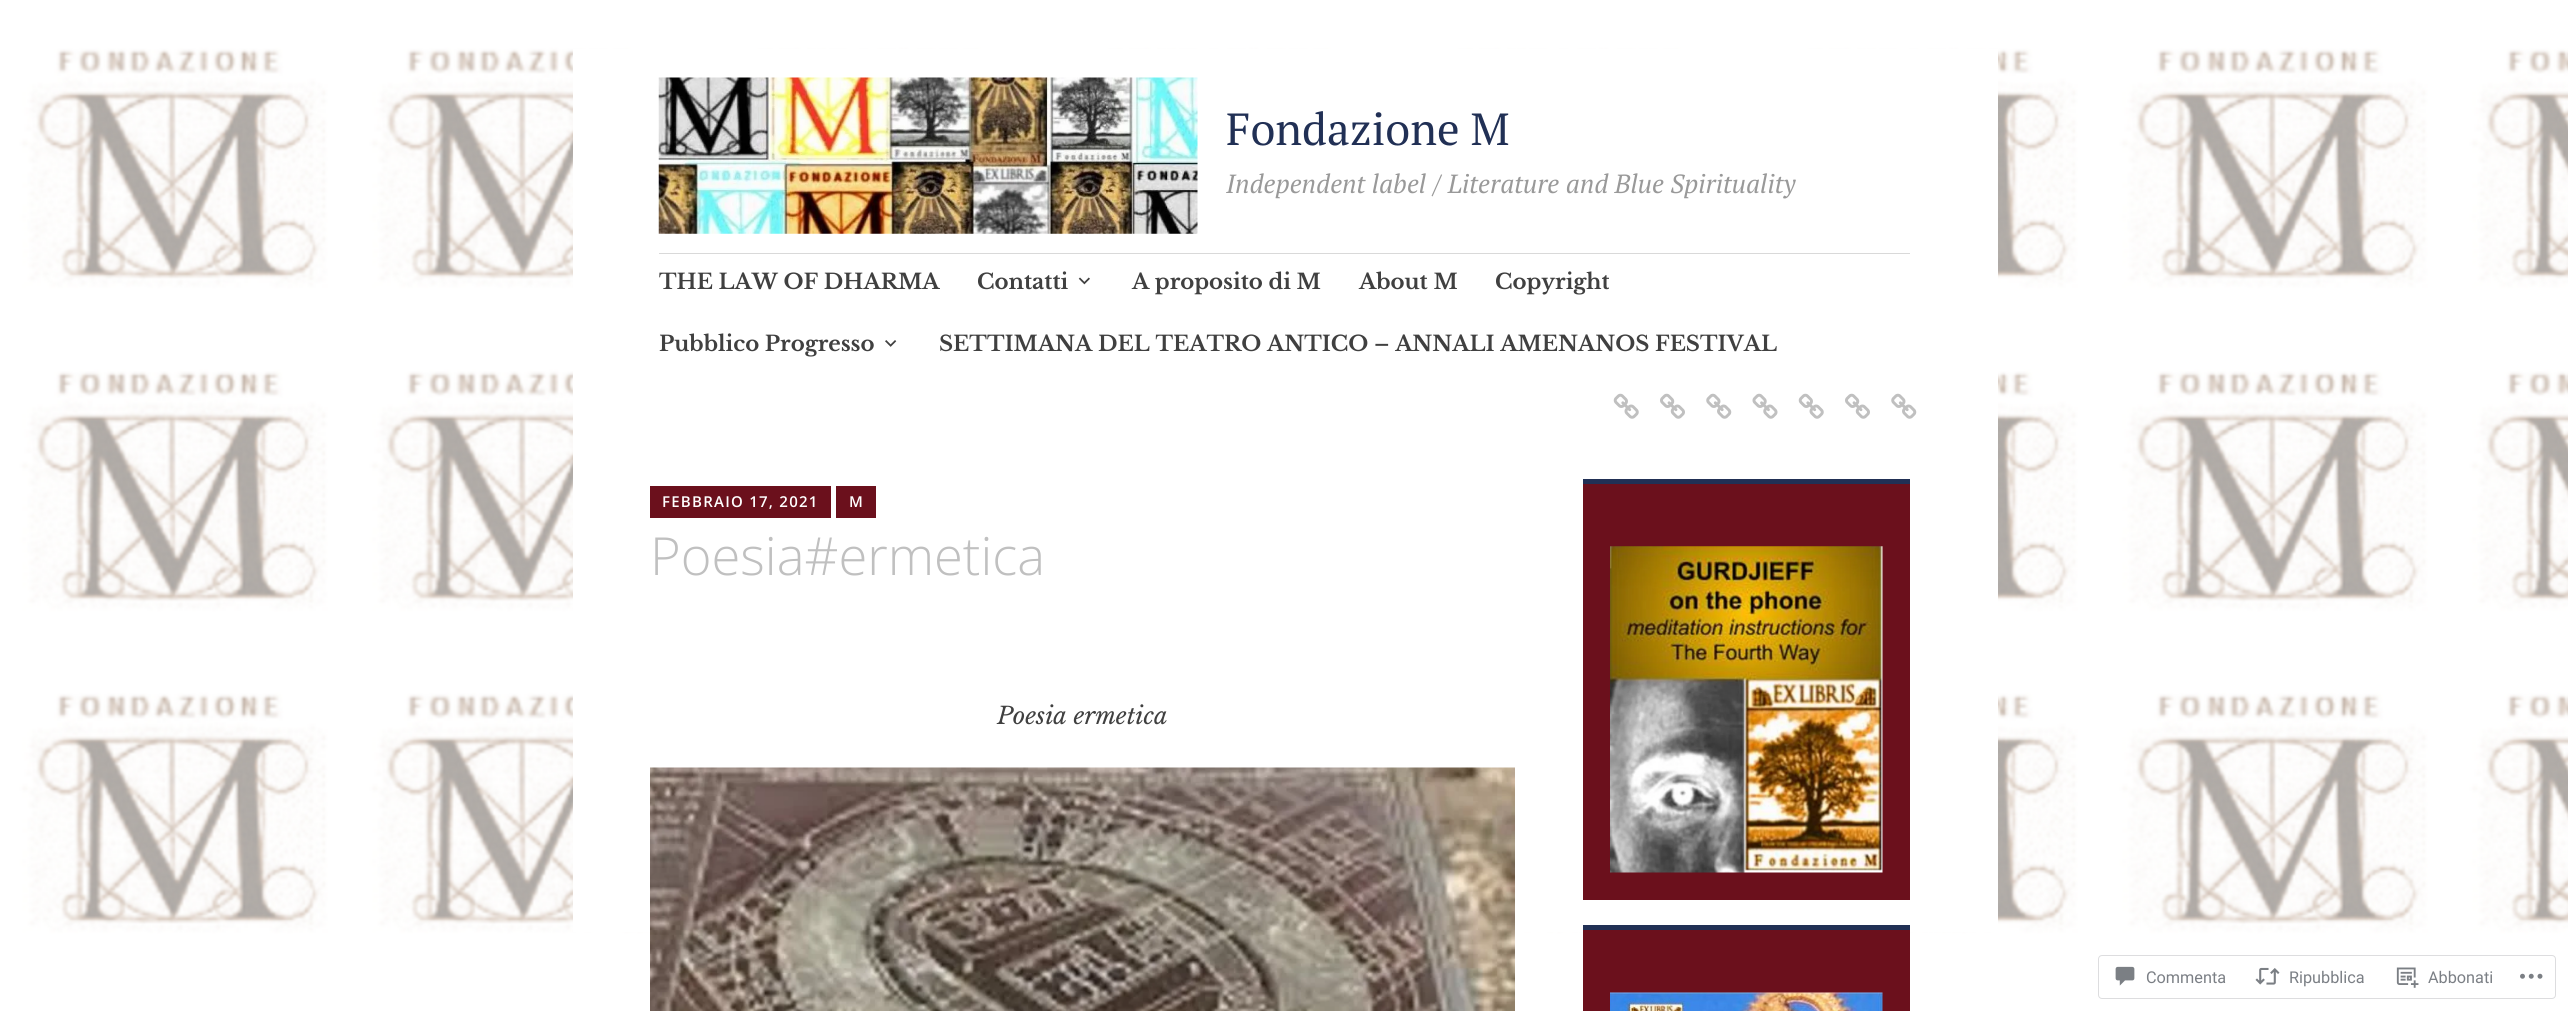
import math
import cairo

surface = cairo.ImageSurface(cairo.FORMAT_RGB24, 2568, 1011)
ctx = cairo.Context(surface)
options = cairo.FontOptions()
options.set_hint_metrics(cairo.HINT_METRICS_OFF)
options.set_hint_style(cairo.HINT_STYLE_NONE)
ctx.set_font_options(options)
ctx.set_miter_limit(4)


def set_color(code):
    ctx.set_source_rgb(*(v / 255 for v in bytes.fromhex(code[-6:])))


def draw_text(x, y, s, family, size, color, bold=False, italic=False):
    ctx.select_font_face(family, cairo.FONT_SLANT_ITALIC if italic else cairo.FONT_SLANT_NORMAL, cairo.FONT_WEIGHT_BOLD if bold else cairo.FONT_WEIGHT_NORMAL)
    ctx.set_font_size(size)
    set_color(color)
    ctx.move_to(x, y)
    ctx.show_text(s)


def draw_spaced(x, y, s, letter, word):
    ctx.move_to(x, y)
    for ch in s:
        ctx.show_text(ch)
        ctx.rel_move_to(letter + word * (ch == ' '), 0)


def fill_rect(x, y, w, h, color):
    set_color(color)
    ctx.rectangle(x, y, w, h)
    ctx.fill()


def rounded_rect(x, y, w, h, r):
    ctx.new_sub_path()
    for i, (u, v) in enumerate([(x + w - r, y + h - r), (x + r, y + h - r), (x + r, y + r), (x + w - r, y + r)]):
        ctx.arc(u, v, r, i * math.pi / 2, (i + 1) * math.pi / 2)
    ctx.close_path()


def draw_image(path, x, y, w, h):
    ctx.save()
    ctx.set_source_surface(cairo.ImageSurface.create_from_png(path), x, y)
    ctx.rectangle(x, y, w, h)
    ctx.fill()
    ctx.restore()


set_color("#ffffff")
ctx.paint()
draw_image("assets/img1.png", 0, 0, 2568, 1011)
fill_rect(573, 49, 1425, 883, "#ffffff")
draw_image("assets/img2.png", 658, 77, 540, 157)
draw_text(1226, 145, "Fondazione M", "PT Serif", 45, "#213055")
draw_text(1226, 193, "Independent label / Literature and Blue Spirituality", "PT Serif", 26.25, "#999999", italic=True)
fill_rect(659, 253, 1251, 1, "#d9d9d9")
draw_text(659, 289, "THE LAW OF DHARMA", "Libre Baskerville", 21.25, "#404040", bold=True)
draw_text(977, 289, "Contatti", "Libre Baskerville", 21.25, "#404040", bold=True)
draw_image("assets/img3.png", 1078, 277, 12, 8)
draw_text(1132, 289, "A proposito di M", "Libre Baskerville", 21.25, "#404040", bold=True)
draw_text(1359, 289, "About M", "Libre Baskerville", 21.25, "#404040", bold=True)
draw_text(1495, 289, "Copyright", "Libre Baskerville", 21.25, "#404040", bold=True)
draw_text(659, 351, "Pubblico Progresso", "Libre Baskerville", 21.25, "#404040", bold=True)
draw_image("assets/img4.png", 885, 340, 12, 7)
draw_text(939, 351, "SETTIMANA DEL TEATRO ANTICO – ANNALI AMENANOS FESTIVAL", "Libre Baskerville", 21.25, "#404040", bold=True)
draw_image("assets/img5.png", 1613, 393, 26, 26)
draw_image("assets/img6.png", 1660, 393, 25, 26)
draw_image("assets/img7.png", 1706, 393, 26, 26)
draw_image("assets/img8.png", 1752, 393, 26, 26)
draw_image("assets/img5.png", 1798, 393, 26, 26)
draw_image("assets/img6.png", 1845, 393, 25, 26)
draw_image("assets/img7.png", 1891, 393, 26, 26)
fill_rect(650, 486, 181, 32, "#6b101c")
ctx.select_font_face("Open Sans SemiBold")
ctx.set_font_size(15)
set_color("#ffffff")
draw_spaced(662, 507, "FEBBRAIO 17, 2021", 1.25, 0)
fill_rect(836, 486, 40, 32, "#6b101c")
set_color("#ffffff")
draw_spaced(849, 507, "M", 1.25, 0)
draw_text(650, 575, "Poesia#ermetica", "Open Sans Light", 52.5, "#c0c0c0")
draw_text(997, 724, "Poesia ermetica", "Libre Baskerville", 23.75, "#404040", italic=True)
draw_image("assets/img9.png", 650, 767, 865, 244)
fill_rect(1583, 484, 327, 416, "#6b101c")
fill_rect(1583, 479, 327, 5, "#213055")
draw_image("assets/img10.png", 1610, 546, 273, 327)
fill_rect(1583, 930, 327, 81, "#6b101c")
fill_rect(1583, 925, 327, 5, "#213055")
draw_image("assets/img11.png", 1610, 992, 273, 19)
rounded_rect(2098.5, 955.5, 457, 43, 3.5)
set_color("#dddddf")
ctx.set_line_width(1)
ctx.stroke()
draw_image("assets/img12.png", 2115, 966, 20, 20)
draw_text(2146, 983, "Commenta", "Roboto", 16.25, "#7b7f85")
draw_image("assets/img13.png", 2255, 967, 25, 18)
draw_text(2289, 983, "Ripubblica", "Roboto", 16.25, "#7b7f85")
draw_image("assets/img14.png", 2396, 967, 23, 21)
draw_text(2428, 983, "Abbonati", "Roboto", 16.25, "#7b7f85")
draw_image("assets/img15.png", 2520, 973, 23, 6)
surface.write_to_png("output.png")
